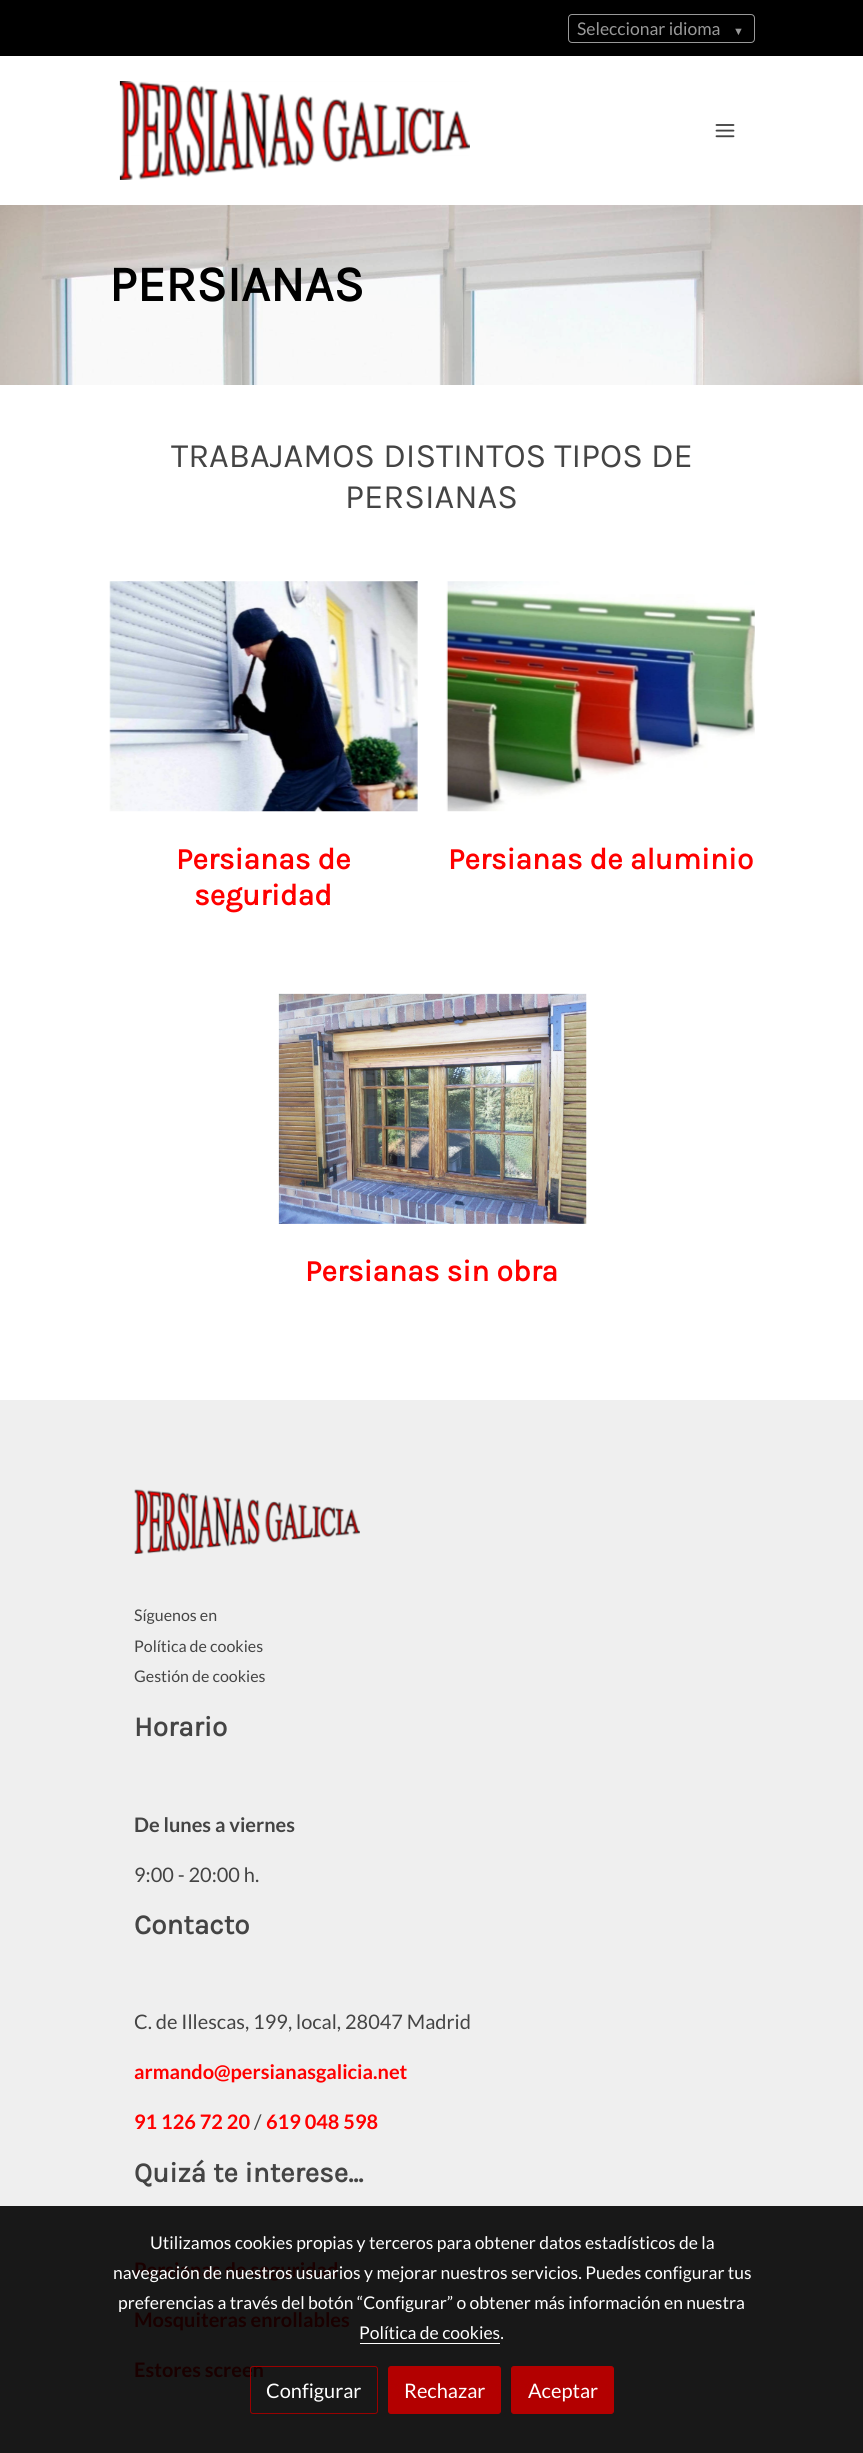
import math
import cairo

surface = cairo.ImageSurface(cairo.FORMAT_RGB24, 863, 2453)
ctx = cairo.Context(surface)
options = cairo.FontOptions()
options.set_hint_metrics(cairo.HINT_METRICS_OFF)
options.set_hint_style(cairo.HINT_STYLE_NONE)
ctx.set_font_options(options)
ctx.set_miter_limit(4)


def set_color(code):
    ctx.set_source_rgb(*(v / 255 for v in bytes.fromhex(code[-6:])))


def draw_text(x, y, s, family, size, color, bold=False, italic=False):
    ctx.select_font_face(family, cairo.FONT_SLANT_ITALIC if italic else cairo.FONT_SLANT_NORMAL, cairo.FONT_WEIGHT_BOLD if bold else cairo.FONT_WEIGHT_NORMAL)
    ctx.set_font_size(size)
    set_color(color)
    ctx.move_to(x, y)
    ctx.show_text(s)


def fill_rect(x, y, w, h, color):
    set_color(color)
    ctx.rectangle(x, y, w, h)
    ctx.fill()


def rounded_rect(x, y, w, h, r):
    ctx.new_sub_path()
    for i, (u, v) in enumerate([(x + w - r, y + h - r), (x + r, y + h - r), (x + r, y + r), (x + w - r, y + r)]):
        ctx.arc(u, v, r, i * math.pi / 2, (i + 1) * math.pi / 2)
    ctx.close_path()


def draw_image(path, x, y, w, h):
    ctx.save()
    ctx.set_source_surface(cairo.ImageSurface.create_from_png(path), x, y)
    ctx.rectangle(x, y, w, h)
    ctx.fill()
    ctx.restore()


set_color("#ffffff")
ctx.paint()
fill_rect(0, 0, 863, 56, "#000000")
rounded_rect(568.5, 14.5, 186, 28, 3.5)
set_color("#999999")
ctx.set_line_width(1)
ctx.stroke()
draw_text(577, 35, "Seleccionar idioma", "Lato", 17.5, "#999999")
draw_text(733, 35, "▼", "Liberation Sans", 11, "#999999")
draw_image("assets/img1.png", 119, 81, 351, 99)
draw_image("assets/img2.png", 715, 124, 20, 14)
draw_image("assets/img3.png", 0, 205, 863, 180)
draw_text(109, 301, "PERSIANAS", "Karla", 50.5, "#000000", bold=True)
draw_text(171, 467, "TRABAJAMOS DISTINTOS TIPOS DE", "Karla", 34.25, "#444444")
draw_text(345, 508, "PERSIANAS", "Karla", 34.25, "#444444")
draw_image("assets/img4.png", 109, 581, 309, 231)
draw_text(176, 869, "Persianas de", "Karla", 30, "#ff0000", bold=True)
draw_text(194, 905, "seguridad", "Karla", 30, "#ff0000", bold=True)
draw_image("assets/img5.png", 446, 581, 309, 231)
draw_text(448, 869, "Persianas de aluminio", "Karla", 30, "#ff0000", bold=True)
draw_image("assets/img6.png", 278, 993, 309, 231)
draw_text(305, 1281, "Persianas sin obra", "Karla", 30, "#ff0000", bold=True)
fill_rect(0, 1400, 863, 806, "#efefef")
fill_rect(0, 2206, 863, 247, "#181818")
draw_image("assets/img7.png", 134, 1489, 226, 65)
draw_text(134, 1621, "Síguenos en", "Lato", 16, "#444444")
draw_text(134, 1652, "Política de cookies", "Lato", 16, "#444444")
draw_text(134, 1682, "Gestión de cookies", "Lato", 16, "#444444")
draw_text(134, 1736, "Horario", "Karla", 28, "#444444", bold=True)
draw_text(134, 1832, "De lunes a viernes", "Lato", 20, "#444444", bold=True)
draw_text(134, 1882, "9:00 - 20:00 h.", "Lato", 20, "#444444")
draw_text(134, 1934, "Contacto", "Karla", 28, "#444444", bold=True)
draw_text(134, 2029, "C. de Illescas, 199, local, 28047 Madrid", "Lato", 20, "#444444")
draw_text(134, 2079, "armando@persianasgalicia.net", "Lato", 20, "#ff0000", bold=True)
draw_text(134, 2129, "91 126 72 20", "Lato", 20, "#ff0000", bold=True)
draw_text(254, 2129, "/", "Lato", 20, "#444444")
draw_text(266, 2129, "619 048 598", "Lato", 20, "#ff0000", bold=True)
draw_text(134, 2182, "Quizá te interese...", "Karla", 28, "#444444", bold=True)
draw_text(134, 2277, "Persianas de seguridad", "Lato", 20, "#190000", bold=True)
draw_text(134, 2327, "Mosquiteras enrollables", "Lato", 20, "#190000", bold=True)
draw_text(134, 2377, "Estores screen", "Lato", 20, "#190000", bold=True)
draw_text(150, 2249, "Utilizamos cookies propias y terceros para obtener datos estadísticos de la", "Lato", 17.5, "#ffffff")
draw_text(113, 2279, "navegación de nuestros usuarios y mejorar nuestros servicios. Puedes configurar tus", "Lato", 17.5, "#ffffff")
draw_text(118, 2309, "preferencias a través del botón “Configurar” o obtener más información en nuestra", "Lato", 17.5, "#ffffff")
draw_text(359, 2339, "Política de cookies.", "Lato", 17.5, "#ffffff")
fill_rect(360, 2343, 140, 1, "#ffffff")
rounded_rect(250.5, 2366.5, 127, 47, 2.5)
set_color("#990000")
ctx.stroke()
draw_text(266, 2398, "Configurar", "Lato", 20, "#ffffff")
set_color("#b30000")
rounded_rect(388.5, 2366.5, 112, 47, 2.5)
ctx.fill_preserve()
ctx.stroke()
draw_text(404, 2398, "Rechazar", "Lato", 20, "#ffffff")
set_color("#b30000")
rounded_rect(511.5, 2366.5, 102, 47, 2.5)
ctx.fill_preserve()
ctx.stroke()
draw_text(528, 2398, "Aceptar", "Lato", 20, "#ffffff")
surface.write_to_png("output.png")
